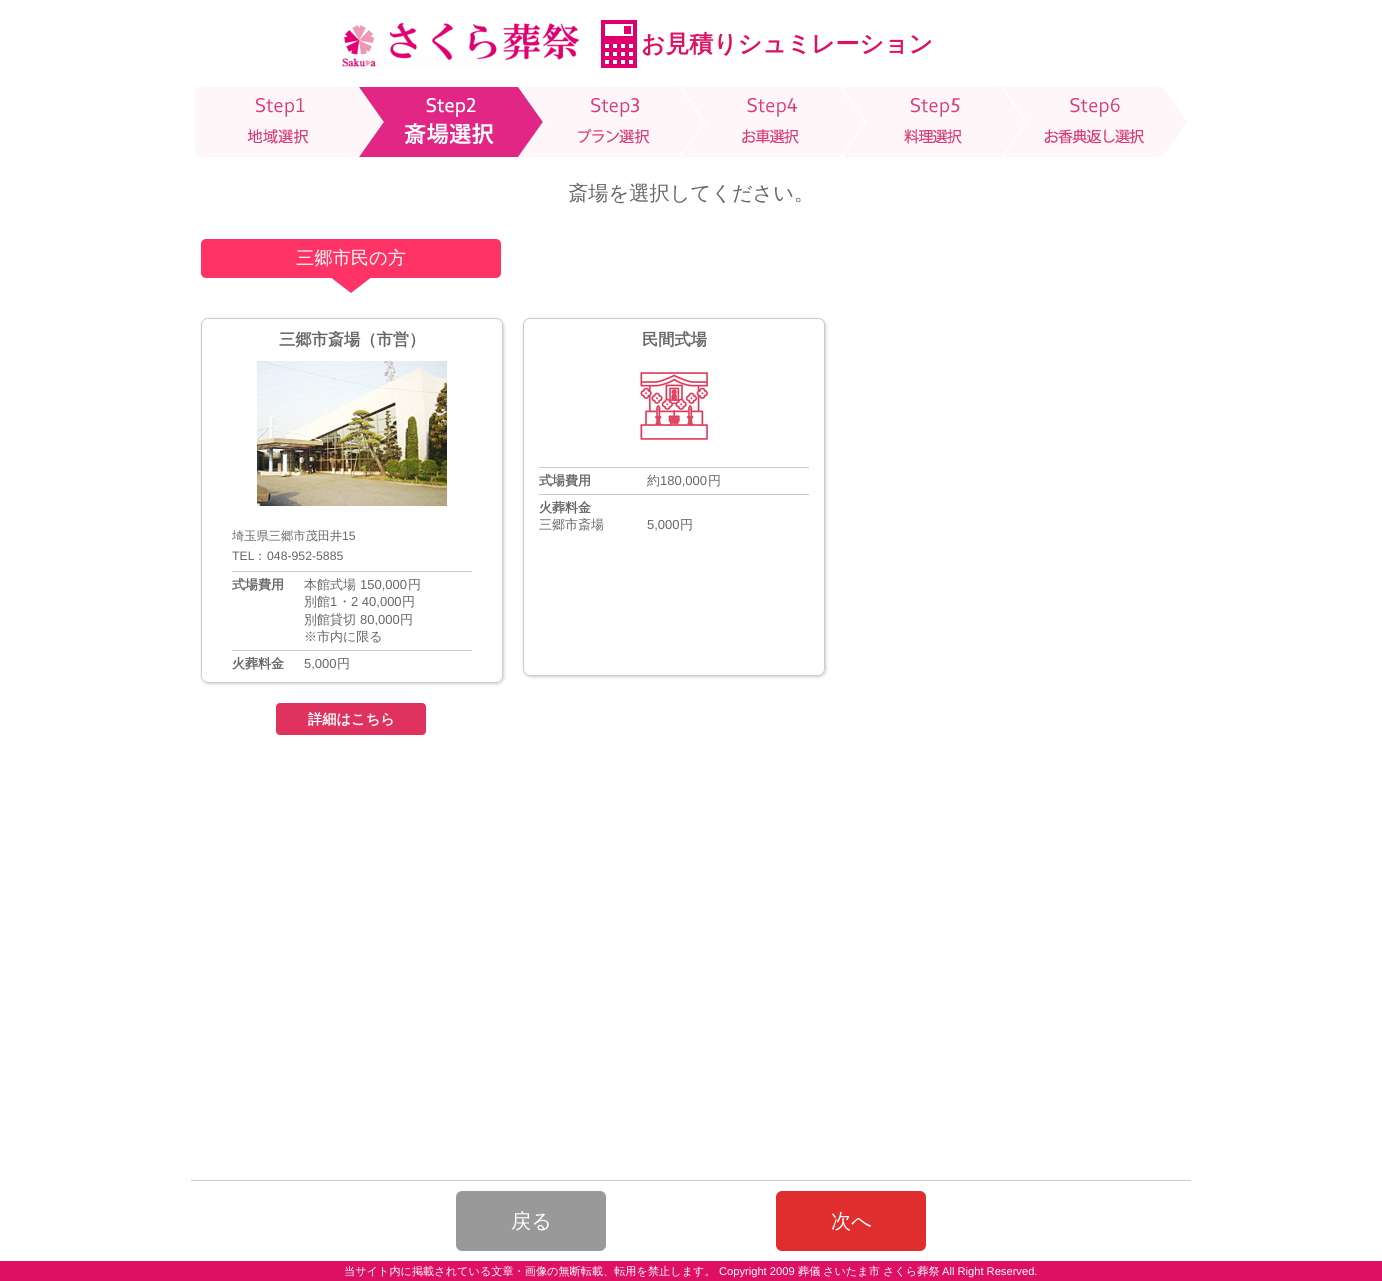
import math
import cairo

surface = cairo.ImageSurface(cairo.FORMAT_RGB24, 1382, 1281)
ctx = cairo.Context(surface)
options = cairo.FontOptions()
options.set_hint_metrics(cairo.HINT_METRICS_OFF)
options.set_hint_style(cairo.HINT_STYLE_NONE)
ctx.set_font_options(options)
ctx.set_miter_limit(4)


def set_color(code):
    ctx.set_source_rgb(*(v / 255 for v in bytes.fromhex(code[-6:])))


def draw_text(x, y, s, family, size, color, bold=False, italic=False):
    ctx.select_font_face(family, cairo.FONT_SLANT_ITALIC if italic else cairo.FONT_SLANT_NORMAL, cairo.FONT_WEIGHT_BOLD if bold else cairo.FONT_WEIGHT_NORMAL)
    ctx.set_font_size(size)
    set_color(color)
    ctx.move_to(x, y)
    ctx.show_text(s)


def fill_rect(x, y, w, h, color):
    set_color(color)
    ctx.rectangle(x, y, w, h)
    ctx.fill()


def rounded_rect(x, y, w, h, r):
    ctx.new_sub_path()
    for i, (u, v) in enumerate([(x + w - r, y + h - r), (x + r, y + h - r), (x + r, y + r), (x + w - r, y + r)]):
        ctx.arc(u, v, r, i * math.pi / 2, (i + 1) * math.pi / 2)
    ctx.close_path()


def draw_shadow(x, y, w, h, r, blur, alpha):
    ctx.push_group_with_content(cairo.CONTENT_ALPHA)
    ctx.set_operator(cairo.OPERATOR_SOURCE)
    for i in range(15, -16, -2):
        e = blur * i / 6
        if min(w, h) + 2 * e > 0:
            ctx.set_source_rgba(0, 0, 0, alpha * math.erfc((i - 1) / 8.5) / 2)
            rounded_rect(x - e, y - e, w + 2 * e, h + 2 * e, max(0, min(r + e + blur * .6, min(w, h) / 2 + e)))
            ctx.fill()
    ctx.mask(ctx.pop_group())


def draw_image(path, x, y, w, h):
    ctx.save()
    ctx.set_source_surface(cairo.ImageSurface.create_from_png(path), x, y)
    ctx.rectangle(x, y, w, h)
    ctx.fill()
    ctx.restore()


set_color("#ffffff")
ctx.paint()
draw_image("assets/img1.png", 342, 22, 238, 45)
draw_image("assets/img2.png", 601, 20, 36, 48)
draw_text(641, 52, "お見積りシュミレーション", "WenQuanYi Zen Hei", 23.9, "#dd1063", bold=True)
draw_image("assets/img3.png", 195, 87, 992, 70)
draw_text(568, 200, "斎場を選択してください。", "WenQuanYi Zen Hei Medium", 20.25, "#666666")
set_color("#ff3366")
rounded_rect(201, 239, 300, 39, 5)
ctx.fill()
draw_text(296, 264, "三郷市民の方", "WenQuanYi Zen Hei Medium", 18.25, "#ffffff")
draw_image("assets/img4.png", 331, 278, 40, 15)
ctx.save()
ctx.set_fill_rule(cairo.FILL_RULE_EVEN_ODD)
ctx.new_path()
ctx.move_to(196, 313)
ctx.line_to(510, 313)
ctx.line_to(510, 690)
ctx.line_to(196, 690)
ctx.close_path()
ctx.move_to(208, 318)
ctx.line_to(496, 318)
ctx.curve_to(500, 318, 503, 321, 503, 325)
ctx.line_to(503, 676)
ctx.curve_to(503, 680, 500, 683, 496, 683)
ctx.line_to(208, 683)
ctx.curve_to(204, 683, 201, 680, 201, 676)
ctx.line_to(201, 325)
ctx.curve_to(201, 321, 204, 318, 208, 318)
ctx.close_path()
ctx.clip()
set_color("#000000")
draw_shadow(202, 319, 302, 365, 7, 1.5, 0.2)
ctx.restore()
rounded_rect(201.5, 318.5, 301, 364, 6.5)
set_color("#cccccc")
ctx.set_line_width(1)
ctx.stroke()
draw_text(279, 345, "三郷市斎場（市営）", "WenQuanYi Zen Hei", 16.25, "#666666", bold=True)
draw_image("assets/img5.png", 257, 361, 190, 145)
draw_text(232, 540, "埼玉県三郷市茂田井", "WenQuanYi Zen Hei Medium", 12.25, "#666666")
draw_text(342, 540, "15", "Liberation Sans", 12.25, "#666666")
draw_text(232, 560, "TEL", "Liberation Sans", 12.25, "#666666")
draw_text(254, 560, "：", "WenQuanYi Zen Hei Medium", 12.25, "#666666")
draw_text(267, 560, "048-952-5885", "Liberation Sans", 12.25, "#666666")
fill_rect(232, 571, 240, 1, "#cccccc")
draw_text(232, 589, "式場費用", "WenQuanYi Zen Hei", 13, "#666666", bold=True)
draw_text(304, 589, "本館式場", "WenQuanYi Zen Hei Medium", 13, "#666666")
draw_text(360, 589, "150,000", "Liberation Sans", 13, "#666666")
draw_text(408, 589, "円", "WenQuanYi Zen Hei Medium", 13, "#666666")
draw_text(304, 606, "別館", "WenQuanYi Zen Hei Medium", 13, "#666666")
draw_text(330, 606, "1", "Liberation Sans", 13, "#666666")
draw_text(338, 606, "・", "WenQuanYi Zen Hei Medium", 13, "#666666")
draw_text(351, 606, "2 40,000", "Liberation Sans", 13, "#666666")
draw_text(402, 606, "円", "WenQuanYi Zen Hei Medium", 13, "#666666")
draw_text(304, 624, "別館貸切", "WenQuanYi Zen Hei Medium", 13, "#666666")
draw_text(360, 624, "80,000", "Liberation Sans", 13, "#666666")
draw_text(400, 624, "円", "WenQuanYi Zen Hei Medium", 13, "#666666")
draw_text(304, 641, "※市内に限る", "WenQuanYi Zen Hei Medium", 13, "#666666")
fill_rect(232, 650, 240, 1, "#cccccc")
draw_text(232, 668, "火葬料金", "WenQuanYi Zen Hei", 13, "#666666", bold=True)
draw_text(304, 668, "5,000", "Liberation Sans", 13, "#666666")
draw_text(337, 668, "円", "WenQuanYi Zen Hei Medium", 13, "#666666")
ctx.save()
ctx.set_fill_rule(cairo.FILL_RULE_EVEN_ODD)
ctx.new_path()
ctx.move_to(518, 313)
ctx.line_to(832, 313)
ctx.line_to(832, 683)
ctx.line_to(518, 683)
ctx.close_path()
ctx.move_to(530, 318)
ctx.line_to(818, 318)
ctx.curve_to(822, 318, 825, 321, 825, 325)
ctx.line_to(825, 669)
ctx.curve_to(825, 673, 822, 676, 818, 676)
ctx.line_to(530, 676)
ctx.curve_to(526, 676, 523, 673, 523, 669)
ctx.line_to(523, 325)
ctx.curve_to(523, 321, 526, 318, 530, 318)
ctx.close_path()
ctx.clip()
set_color("#000000")
draw_shadow(524, 319, 302, 358, 7, 1.5, 0.2)
ctx.restore()
rounded_rect(523.5, 318.5, 301, 357, 6.5)
set_color("#cccccc")
ctx.stroke()
draw_text(642, 345, "民間式場", "WenQuanYi Zen Hei", 16.25, "#666666", bold=True)
draw_image("assets/img6.png", 638, 370, 70, 73)
fill_rect(539, 467, 270, 1, "#cccccc")
draw_text(539, 485, "式場費用", "WenQuanYi Zen Hei", 13, "#666666", bold=True)
draw_text(647, 485, "約", "WenQuanYi Zen Hei Medium", 13, "#666666")
draw_text(660, 485, "180,000", "Liberation Sans", 13, "#666666")
draw_text(708, 485, "円", "WenQuanYi Zen Hei Medium", 13, "#666666")
fill_rect(539, 494, 270, 1, "#cccccc")
draw_text(539, 512, "火葬料金", "WenQuanYi Zen Hei", 13, "#666666", bold=True)
draw_text(539, 529, "三郷市斎場", "WenQuanYi Zen Hei Medium", 13, "#666666")
draw_text(647, 529, "5,000", "Liberation Sans", 13, "#666666")
draw_text(680, 529, "円", "WenQuanYi Zen Hei Medium", 13, "#666666")
set_color("#e0325f")
rounded_rect(276, 703, 150, 32, 4)
ctx.fill()
draw_text(308, 724, "詳細はこちら", "WenQuanYi Zen Hei", 14.25, "#ffffff", bold=True)
fill_rect(191, 1180, 1000, 1, "#cdcdcd")
set_color("#999999")
rounded_rect(456, 1191, 150, 60, 6)
ctx.fill()
draw_text(511, 1228, "戻る", "WenQuanYi Zen Hei Medium", 20.25, "#ffffff")
set_color("#e02e2e")
rounded_rect(776, 1191, 150, 60, 6)
ctx.fill()
draw_text(831, 1228, "次へ", "WenQuanYi Zen Hei Medium", 20.25, "#ffffff")
fill_rect(0, 1261, 1382, 20, "#dd1063")
draw_text(344, 1275, "当サイト内に掲載されている文章・画像の無断転載、転用を禁止します。", "WenQuanYi Zen Hei Medium", 11.15, "#ffffff")
draw_text(719, 1275, "Copyright 2009", "Liberation Sans", 11.15, "#ffffff")
draw_text(798, 1275, "葬儀", "WenQuanYi Zen Hei Medium", 11.15, "#ffffff")
draw_text(823, 1275, "さいたま市", "WenQuanYi Zen Hei Medium", 11.15, "#ffffff")
draw_text(883, 1275, "さくら葬祭", "WenQuanYi Zen Hei Medium", 11.15, "#ffffff")
draw_text(942, 1275, "All Right Reserved.", "Liberation Sans", 11.15, "#ffffff")
surface.write_to_png("output.png")
